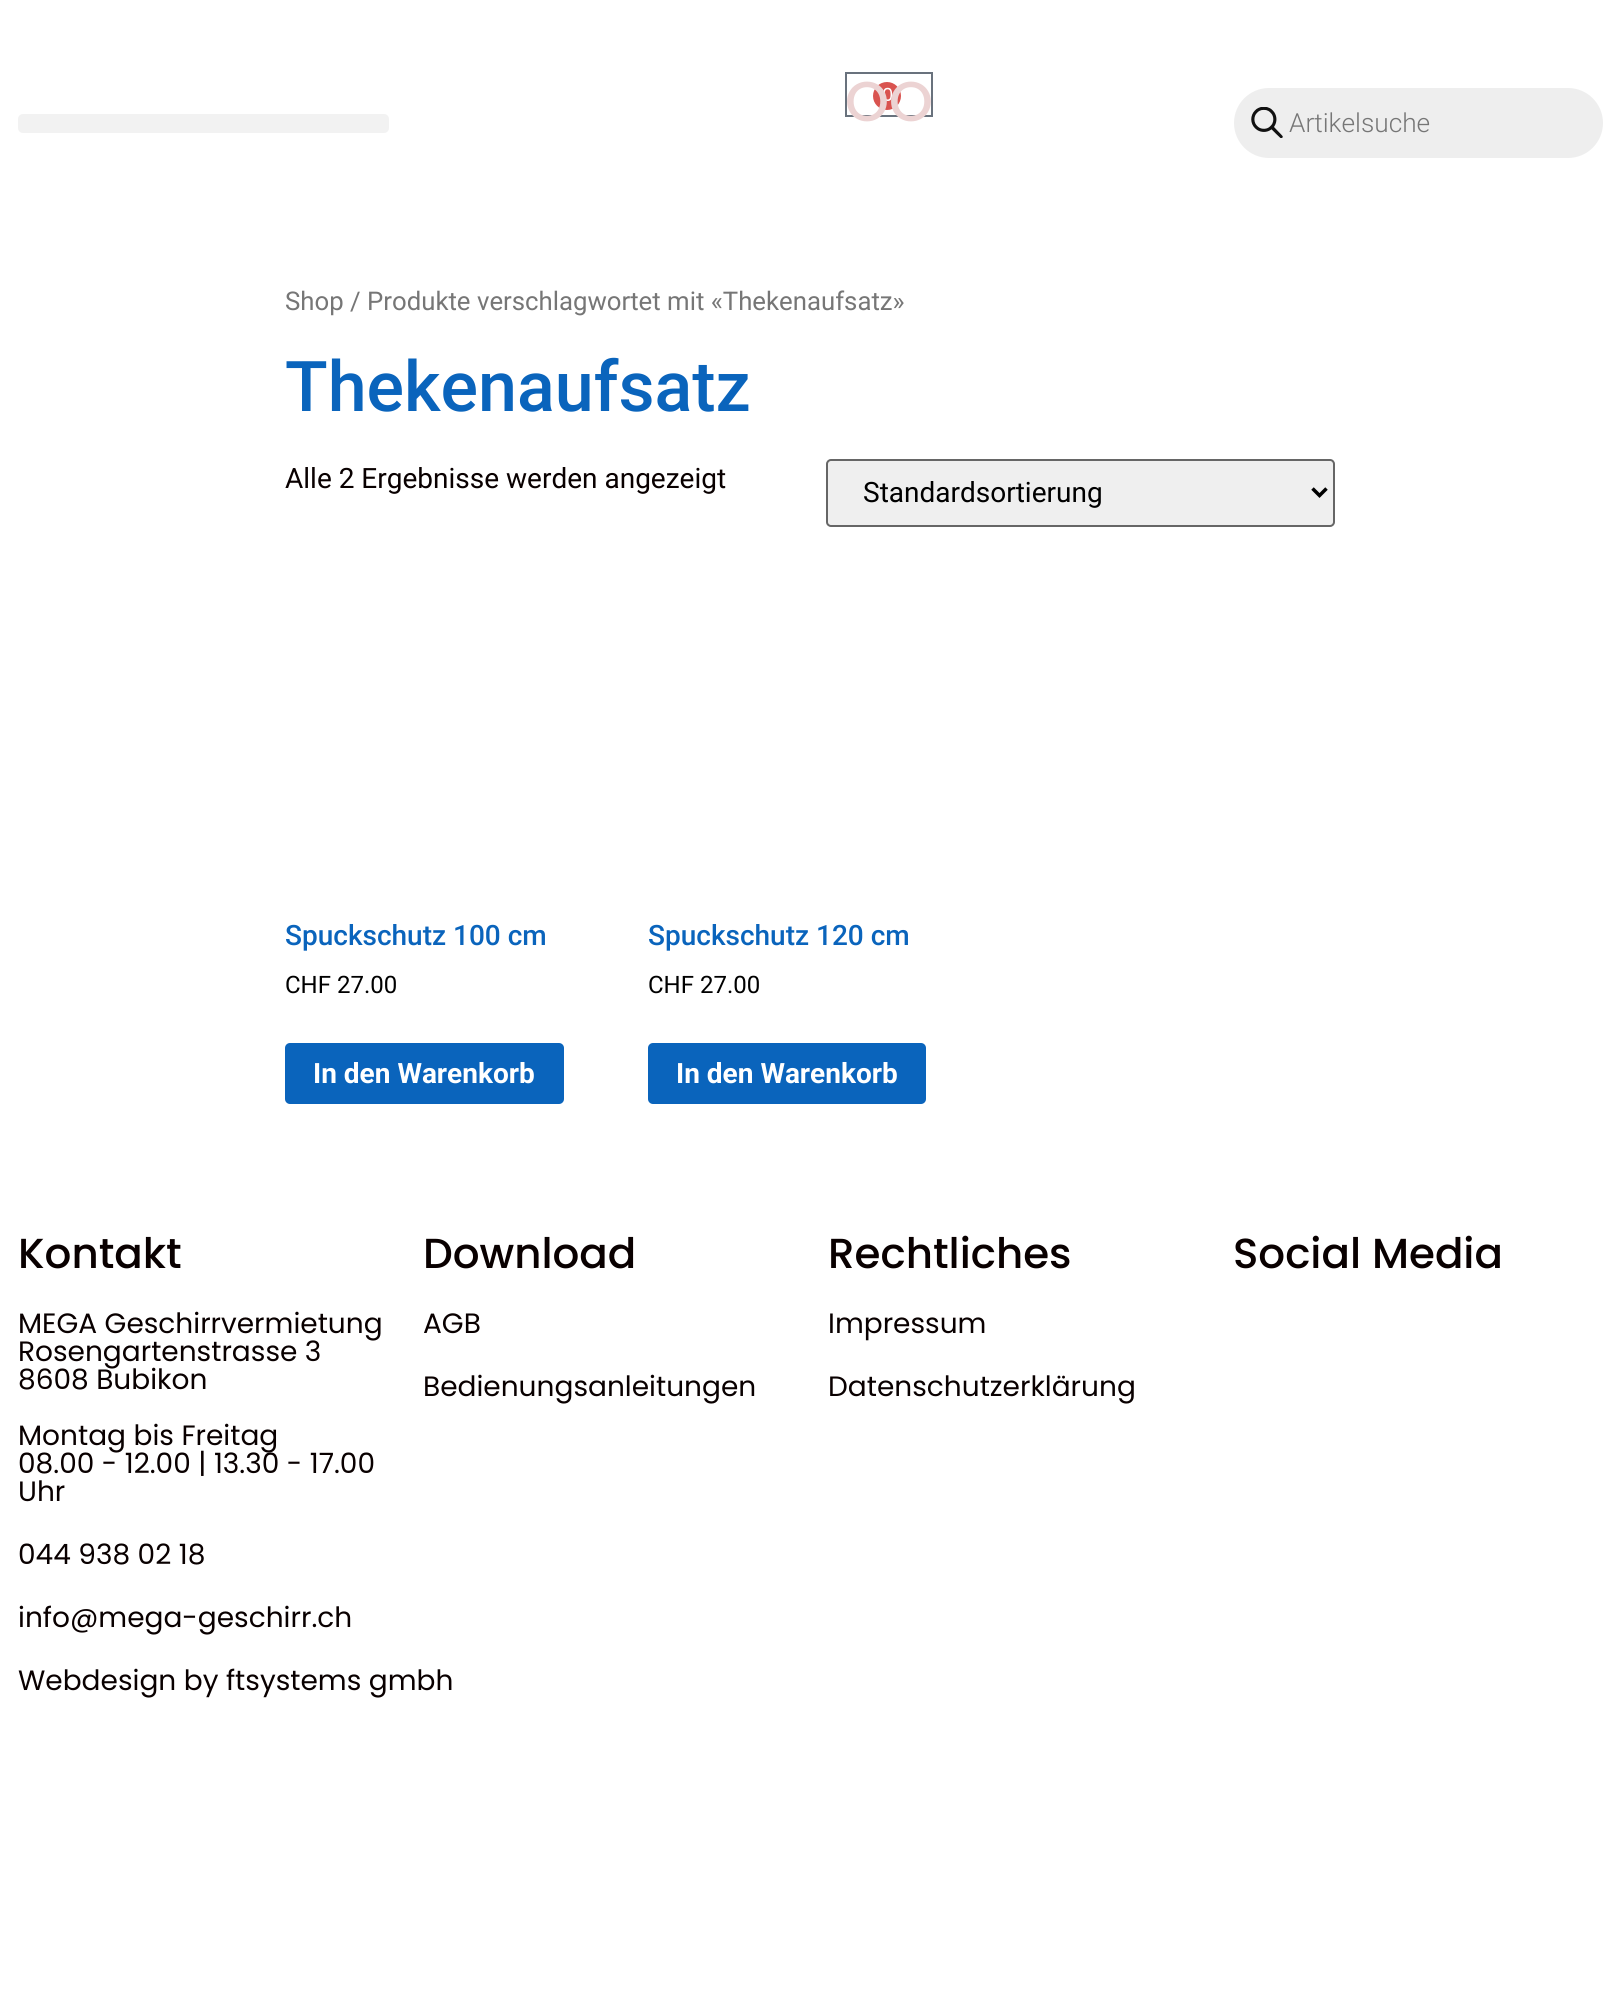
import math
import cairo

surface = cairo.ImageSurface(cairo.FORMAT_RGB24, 1619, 2012)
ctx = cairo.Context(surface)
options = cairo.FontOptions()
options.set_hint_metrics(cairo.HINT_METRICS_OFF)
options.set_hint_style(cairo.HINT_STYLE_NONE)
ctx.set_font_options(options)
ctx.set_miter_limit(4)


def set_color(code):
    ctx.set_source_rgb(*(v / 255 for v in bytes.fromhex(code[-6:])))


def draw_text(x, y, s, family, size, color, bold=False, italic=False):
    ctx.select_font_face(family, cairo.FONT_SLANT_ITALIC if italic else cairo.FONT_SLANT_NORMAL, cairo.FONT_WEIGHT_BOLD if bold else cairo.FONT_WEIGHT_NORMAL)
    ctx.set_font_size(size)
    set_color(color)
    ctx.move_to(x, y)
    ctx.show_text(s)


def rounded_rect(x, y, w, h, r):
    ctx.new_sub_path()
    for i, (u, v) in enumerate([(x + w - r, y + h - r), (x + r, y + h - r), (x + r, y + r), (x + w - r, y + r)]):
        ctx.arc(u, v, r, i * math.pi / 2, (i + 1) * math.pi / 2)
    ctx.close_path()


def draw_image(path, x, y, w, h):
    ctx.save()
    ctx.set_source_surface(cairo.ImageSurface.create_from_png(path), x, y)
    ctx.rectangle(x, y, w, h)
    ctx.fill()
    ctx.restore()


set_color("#ffffff")
ctx.paint()
set_color("#f2f2f2")
rounded_rect(18, 114, 371, 19, 5)
ctx.fill()
ctx.rectangle(846, 73, 86, 43)
set_color("#69727d")
ctx.stroke()
set_color("#d9534f")
ctx.arc(887, 96, 14, 0, 2 * math.pi)
ctx.fill()
draw_text(882, 101, "0", "Poppins", 18, "#ffffff")
draw_text(845, 121, "OO", "Poppins Medium", 56, "#ecd3d3")
set_color("#eeeeee")
rounded_rect(1234, 88, 369, 70, 35)
ctx.fill()
draw_image("assets/img1.png", 1251, 107, 32, 31)
draw_text(1289, 132, "Artikelsuche", "Roboto Light", 26.25, "#767676")
draw_text(285, 310, "Shop / Produkte verschlagwortet mit «Thekenaufsatz»", "Roboto", 25.75, "#767676")
draw_text(285, 411, "Thekenaufsatz", "Roboto Medium", 70, "#0a64bc")
draw_text(285, 488, "Alle 2 Ergebnisse werden angezeigt", "Roboto", 28, "#090000")
set_color("#efefef")
rounded_rect(827, 460, 507, 66, 4)
ctx.fill_preserve()
set_color("#666666")
ctx.stroke()
ctx.new_path()
ctx.move_to(1312.5, 488.5)
ctx.line_to(1319.5, 495.5)
ctx.line_to(1326.5, 488.5)
set_color("#000000")
ctx.set_line_width(3.5)
ctx.stroke()
draw_text(863, 502, "Standardsortierung", "Roboto", 28, "#000000")
draw_text(285, 945, "Spuckschutz 100 cm", "Roboto Medium", 28, "#0a64bc")
draw_text(285, 993, "CHF 27.00", "Roboto", 24, "#000000")
set_color("#0a64bc")
rounded_rect(285, 1043, 279, 61, 5)
ctx.fill()
draw_text(313, 1083, "In den Warenkorb", "Roboto", 28, "#ffffff", bold=True)
draw_text(648, 945, "Spuckschutz 120 cm", "Roboto Medium", 28, "#0a64bc")
draw_text(648, 993, "CHF 27.00", "Roboto", 24, "#000000")
set_color("#0a64bc")
rounded_rect(648, 1043, 278, 61, 5)
ctx.fill()
draw_text(676, 1083, "In den Warenkorb", "Roboto", 28, "#ffffff", bold=True)
draw_text(18, 1268, "Kontakt", "Poppins Medium", 42, "#090000")
draw_text(18, 1333, "MEGA Geschirrvermietung", "Poppins", 28, "#090000")
draw_text(18, 1361, "Rosengartenstrasse 3", "Poppins", 28, "#090000")
draw_text(18, 1389, "8608 Bubikon", "Poppins", 28, "#090000")
draw_text(18, 1445, "Montag bis Freitag", "Poppins", 28, "#090000")
draw_text(18, 1473, "08.00 - 12.00 | 13.30 - 17.00", "Poppins", 28, "#090000")
draw_text(18, 1501, "Uhr", "Poppins", 28, "#090000")
draw_text(18, 1564, "044 938 02 18", "Poppins", 28, "#090000")
draw_text(18, 1627, "info@mega-geschirr.ch", "Poppins", 28, "#090000")
draw_text(423, 1268, "Download", "Poppins Medium", 42, "#090000")
draw_text(423, 1333, "AGB", "Poppins", 28, "#090000")
draw_text(423, 1396, "Bedienungsanleitungen", "Poppins", 28, "#090000")
draw_text(828, 1268, "Rechtliches", "Poppins Medium", 42, "#090000")
draw_text(828, 1333, "Impressum", "Poppins", 28, "#090000")
draw_text(828, 1396, "Datenschutzerklärung", "Poppins", 28, "#090000")
draw_text(1233, 1268, "Social Media", "Poppins Medium", 42, "#090000")
draw_text(18, 1690, "Webdesign by ftsystems gmbh", "Poppins", 28, "#090000")
surface.write_to_png("output.png")
